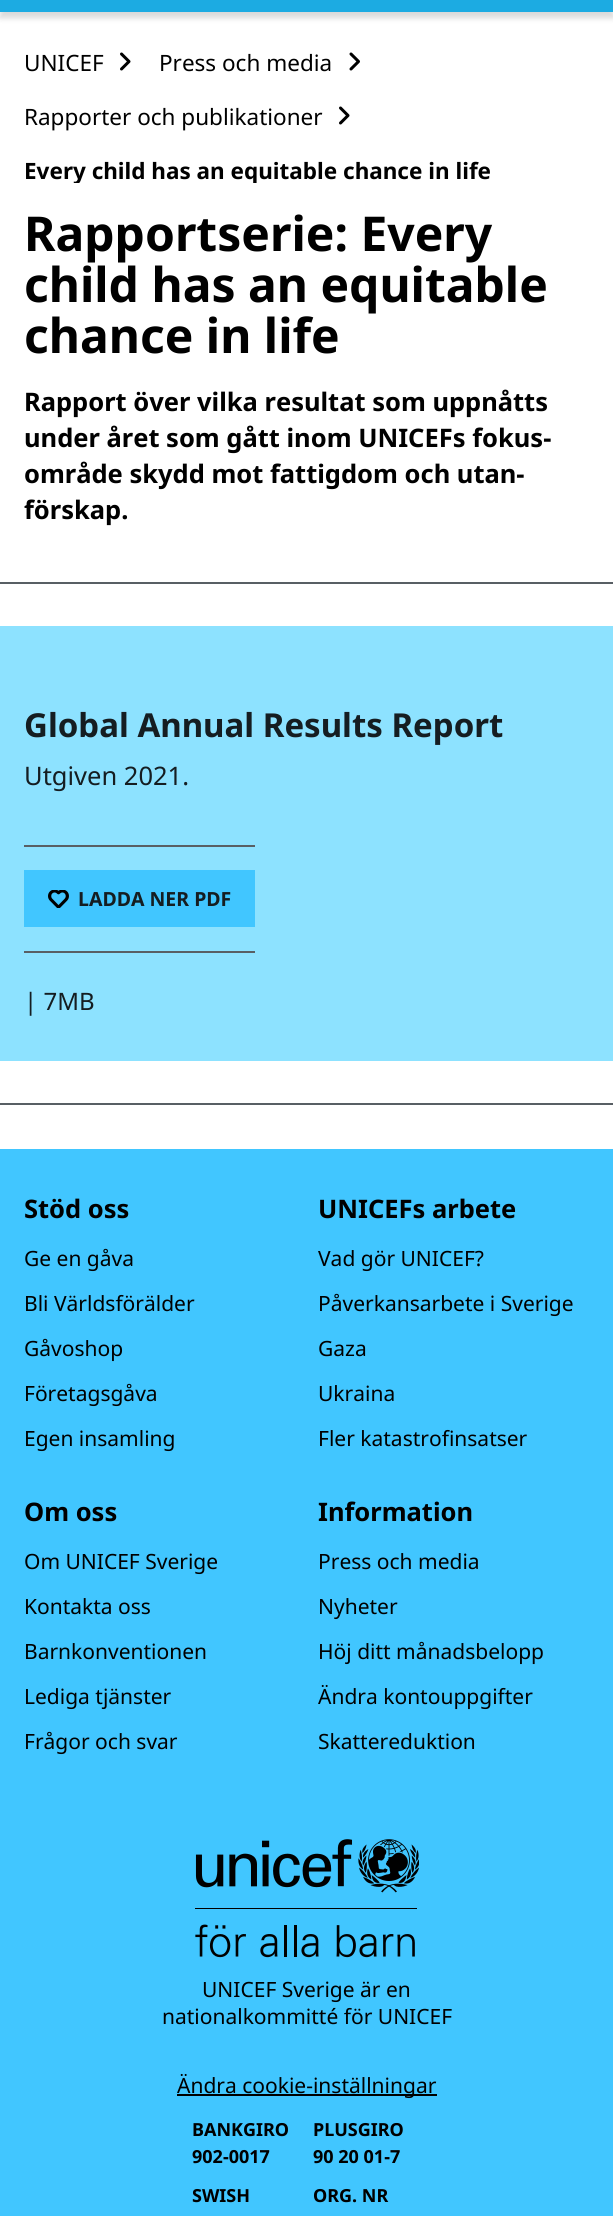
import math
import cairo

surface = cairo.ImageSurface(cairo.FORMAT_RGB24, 613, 2216)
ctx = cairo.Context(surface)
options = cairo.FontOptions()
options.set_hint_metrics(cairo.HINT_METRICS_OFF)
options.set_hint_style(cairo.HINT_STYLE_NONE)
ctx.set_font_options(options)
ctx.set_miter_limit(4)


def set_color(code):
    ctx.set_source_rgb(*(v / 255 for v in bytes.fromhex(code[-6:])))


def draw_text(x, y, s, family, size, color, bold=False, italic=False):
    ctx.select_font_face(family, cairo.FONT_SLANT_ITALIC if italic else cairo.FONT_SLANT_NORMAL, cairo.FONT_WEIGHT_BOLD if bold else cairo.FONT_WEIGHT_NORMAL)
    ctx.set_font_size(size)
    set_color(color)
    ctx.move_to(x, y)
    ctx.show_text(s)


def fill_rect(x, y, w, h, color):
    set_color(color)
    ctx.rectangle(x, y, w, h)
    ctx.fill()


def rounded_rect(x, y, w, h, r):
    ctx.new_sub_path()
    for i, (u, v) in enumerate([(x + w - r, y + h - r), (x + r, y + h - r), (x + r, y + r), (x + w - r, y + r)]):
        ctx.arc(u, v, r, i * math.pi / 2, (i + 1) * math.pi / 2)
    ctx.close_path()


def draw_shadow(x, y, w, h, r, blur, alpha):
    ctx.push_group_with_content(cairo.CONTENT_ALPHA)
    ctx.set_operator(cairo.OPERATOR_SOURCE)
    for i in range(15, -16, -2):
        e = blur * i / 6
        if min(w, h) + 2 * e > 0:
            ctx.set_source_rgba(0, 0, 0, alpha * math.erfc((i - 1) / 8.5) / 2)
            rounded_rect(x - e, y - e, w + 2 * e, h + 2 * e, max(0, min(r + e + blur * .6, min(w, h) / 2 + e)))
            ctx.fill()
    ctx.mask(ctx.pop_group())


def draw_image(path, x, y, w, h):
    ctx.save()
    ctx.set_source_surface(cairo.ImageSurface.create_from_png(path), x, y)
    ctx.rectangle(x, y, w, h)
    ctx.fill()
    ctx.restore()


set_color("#ffffff")
ctx.paint()
set_color("#000000")
draw_shadow(0, -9, 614, 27, 0, 3, 0.15)
fill_rect(0, 0, 613, 12, "#1cabe2")
draw_text(24, 71, "UNICEF", "Noto Sans", 22.5, "#000000")
draw_image("assets/img1.png", 120, 52, 11, 19)
draw_text(159, 71, "Press och media", "Noto Sans", 22.5, "#000000")
draw_image("assets/img2.png", 349, 52, 11, 19)
draw_text(24, 125, "Rapporter och publikationer", "Noto Sans", 22.5, "#000000")
draw_image("assets/img1.png", 339, 106, 11, 19)
ctx.save()
ctx.rectangle(24, 156, 467, 27)
ctx.clip()
draw_text(24, 179, "Every child has an equitable chance in life", "Noto Sans", 22.5, "#000000", bold=True)
ctx.restore()
draw_text(24, 251, "Rapportserie: Every", "Noto Sans", 48, "#000000", bold=True)
draw_text(24, 302, "child has an equitable", "Noto Sans", 48, "#000000", bold=True)
draw_text(24, 353, "chance in life", "Noto Sans", 48, "#000000", bold=True)
draw_text(24, 411, "Rapport över vilka resultat som uppnåtts", "Noto Sans", 25.5, "#000000", bold=True)
draw_text(24, 447, "under året som gått inom UNICEFs fokus-", "Noto Sans", 25.5, "#000000", bold=True)
draw_text(24, 483, "område skydd mot fattigdom och utan-", "Noto Sans", 25.5, "#000000", bold=True)
draw_text(24, 519, "förskap.", "Noto Sans", 25.5, "#000000", bold=True)
fill_rect(0, 582, 613, 2, "#585f64")
fill_rect(0, 1103, 613, 2, "#585f64")
fill_rect(0, 626, 613, 435, "#8de2ff")
draw_text(24, 737, "Global Annual Results Report", "Noto Sans", 33, "#151d21", bold=True)
draw_text(24, 785, "Utgiven 2021.", "Noto Sans", 25.5, "#151d21")
fill_rect(24, 845, 231, 2, "#585f64")
fill_rect(24, 951, 231, 2, "#585f64")
fill_rect(24, 870, 231, 57, "#41c6ff")
draw_image("assets/img3.png", 48, 890, 21, 18)
draw_text(78, 906, "LADDA NER PDF", "Noto Sans", 19.5, "#151d21", bold=True)
draw_text(24, 1010, "| 7MB", "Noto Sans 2", 24, "#151d21")
fill_rect(0, 1149, 613, 1067, "#41c6ff")
draw_text(24, 1218, "Stöd oss", "Noto Sans", 25.5, "#000000", bold=True)
draw_text(24, 1266, "Ge en gåva", "Noto Sans", 21, "#000000")
draw_text(24, 1311, "Bli Världsförälder", "Noto Sans", 21, "#000000")
draw_text(24, 1356, "Gåvoshop", "Noto Sans", 21, "#000000")
draw_text(24, 1401, "Företagsgåva", "Noto Sans", 21, "#000000")
draw_text(24, 1446, "Egen insamling", "Noto Sans", 21, "#000000")
draw_text(318, 1218, "UNICEFs arbete", "Noto Sans", 25.5, "#000000", bold=True)
draw_text(318, 1266, "Vad gör UNICEF?", "Noto Sans", 21, "#000000")
draw_text(318, 1311, "Påverkansarbete i Sverige", "Noto Sans", 21, "#000000")
draw_text(318, 1356, "Gaza", "Noto Sans", 21, "#000000")
draw_text(318, 1401, "Ukraina", "Noto Sans", 21, "#000000")
draw_text(318, 1446, "Fler katastrofinsatser", "Noto Sans", 21, "#000000")
draw_text(24, 1521, "Om oss", "Noto Sans", 25.5, "#000000", bold=True)
draw_text(24, 1569, "Om UNICEF Sverige", "Noto Sans", 21, "#000000")
draw_text(24, 1614, "Kontakta oss", "Noto Sans", 21, "#000000")
draw_text(24, 1659, "Barnkonventionen", "Noto Sans", 21, "#000000")
draw_text(24, 1704, "Lediga tjänster", "Noto Sans", 21, "#000000")
draw_text(24, 1749, "Frågor och svar", "Noto Sans", 21, "#000000")
draw_text(318, 1521, "Information", "Noto Sans", 25.5, "#000000", bold=True)
draw_text(318, 1569, "Press och media", "Noto Sans", 21, "#000000")
draw_text(318, 1614, "Nyheter", "Noto Sans", 21, "#000000")
draw_text(318, 1659, "Höj ditt månadsbelopp", "Noto Sans", 21, "#000000")
draw_text(318, 1704, "Ändra kontouppgifter", "Noto Sans", 21, "#000000")
draw_text(318, 1749, "Skattereduktion", "Noto Sans", 21, "#000000")
draw_image("assets/img4.png", 195, 1839, 224, 119)
draw_text(202, 1997, "UNICEF Sverige är en", "Noto Sans", 21, "#000000")
draw_text(162, 2024, "nationalkommitté för UNICEF", "Noto Sans", 21, "#000000")
fill_rect(177, 2094, 260, 2, "#000000")
draw_text(177, 2093, "Ändra cookie-inställningar", "Noto Sans", 21, "#000000")
draw_text(192, 2136, "BANKGIRO", "Noto Sans", 18, "#000000", bold=True)
draw_text(192, 2163, "902-0017", "Noto Sans", 18, "#000000", bold=True)
draw_text(313, 2136, "PLUSGIRO", "Noto Sans", 18, "#000000", bold=True)
draw_text(313, 2163, "90 20 01-7", "Noto Sans", 18, "#000000", bold=True)
draw_text(192, 2202, "SWISH", "Noto Sans", 18, "#000000", bold=True)
draw_text(313, 2202, "ORG. NR", "Noto Sans", 18, "#000000", bold=True)
surface.write_to_png("output.png")
